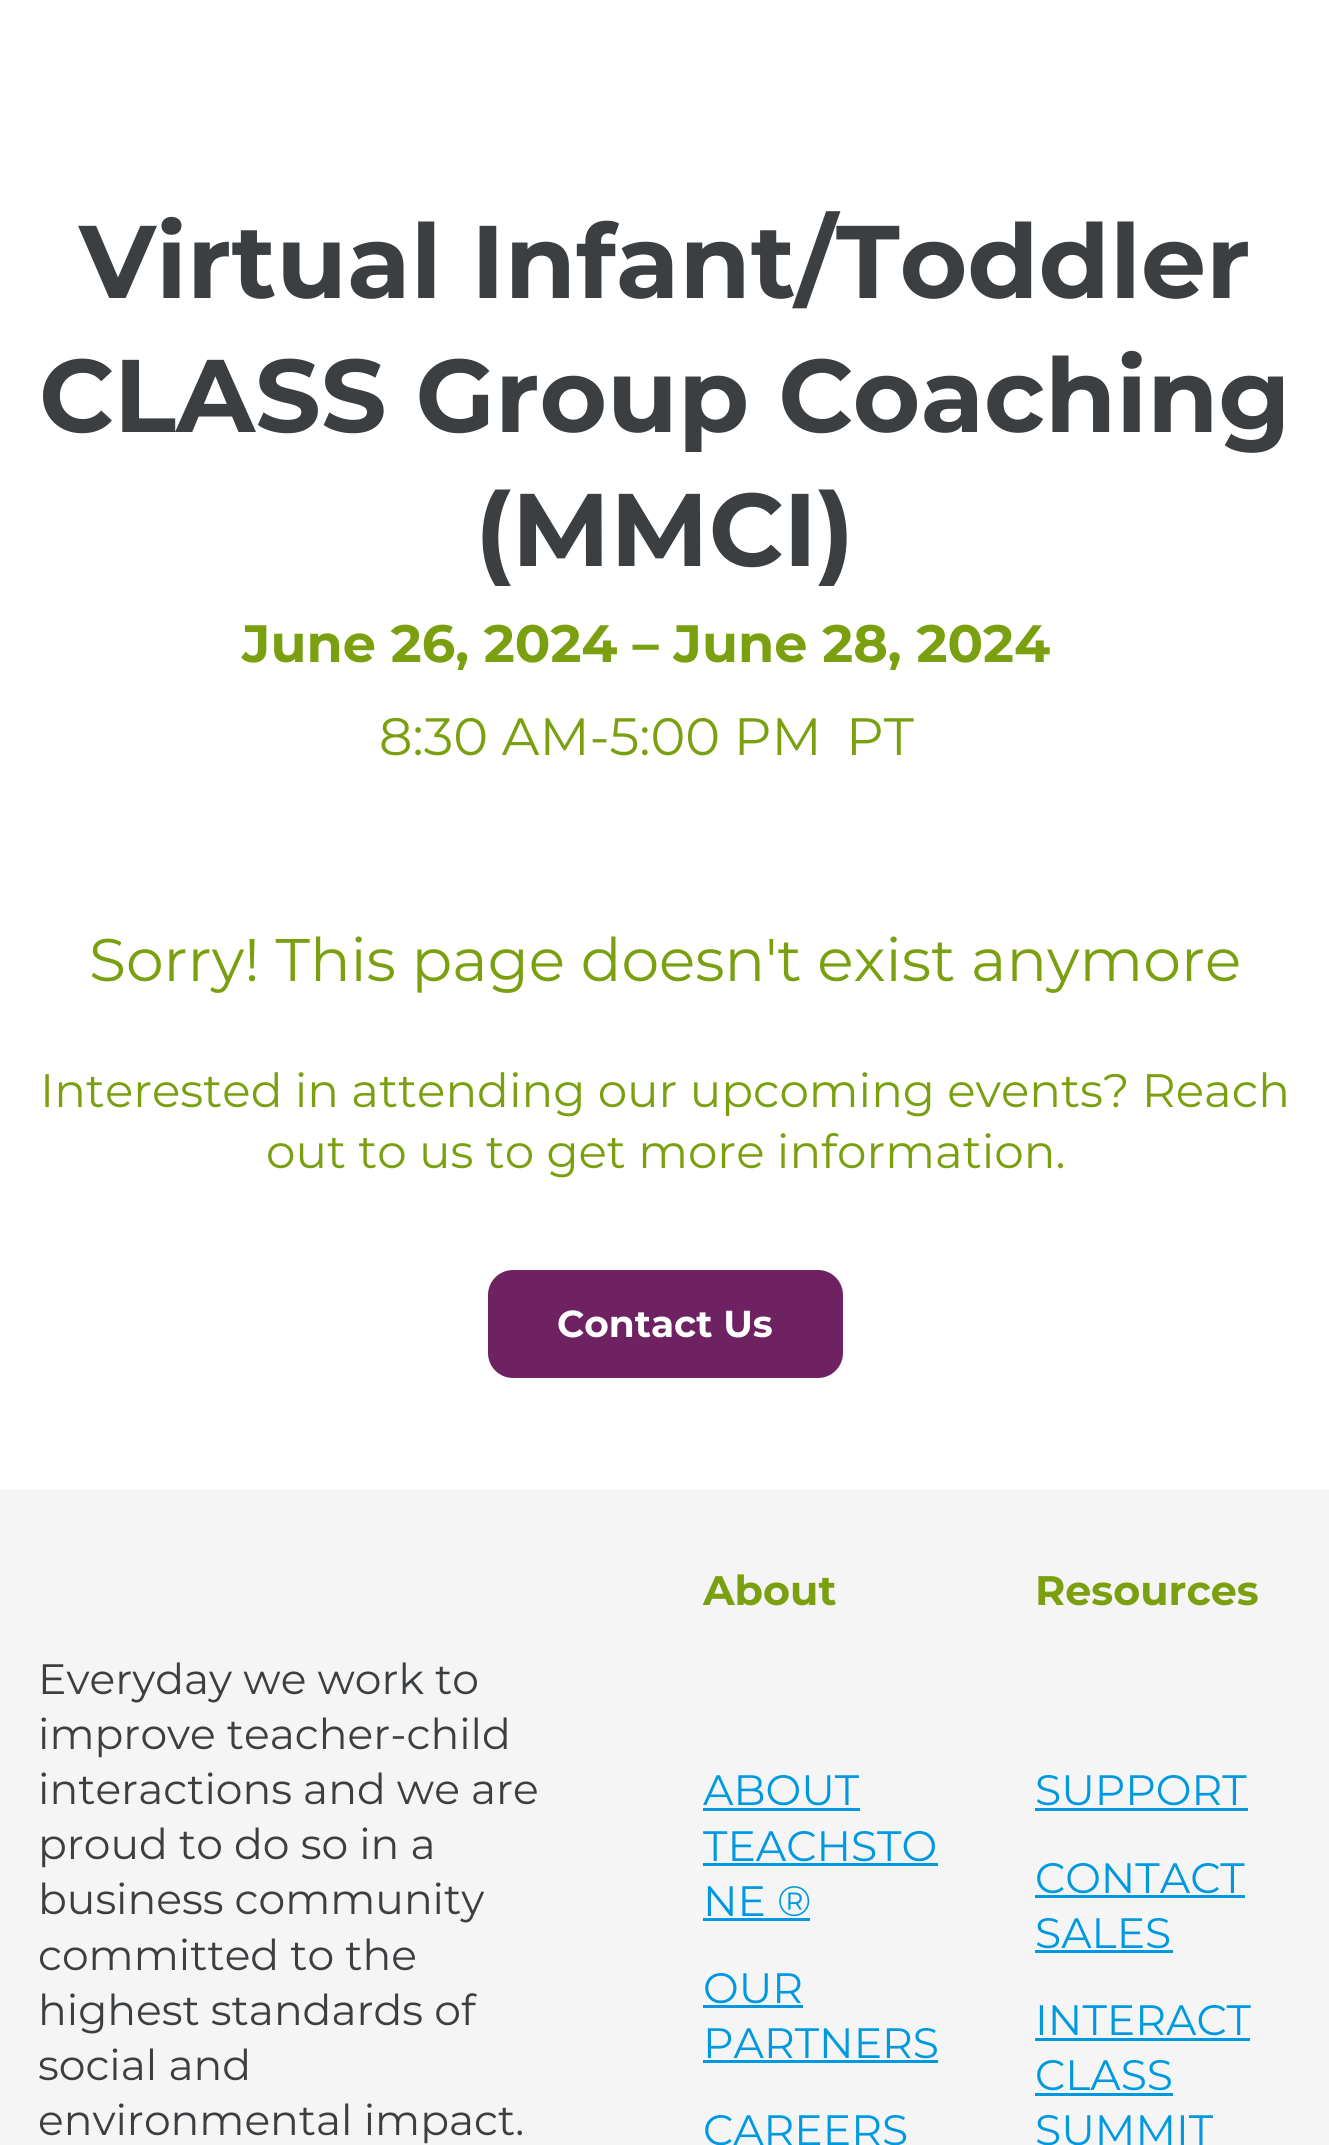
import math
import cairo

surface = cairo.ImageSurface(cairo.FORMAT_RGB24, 1329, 2145)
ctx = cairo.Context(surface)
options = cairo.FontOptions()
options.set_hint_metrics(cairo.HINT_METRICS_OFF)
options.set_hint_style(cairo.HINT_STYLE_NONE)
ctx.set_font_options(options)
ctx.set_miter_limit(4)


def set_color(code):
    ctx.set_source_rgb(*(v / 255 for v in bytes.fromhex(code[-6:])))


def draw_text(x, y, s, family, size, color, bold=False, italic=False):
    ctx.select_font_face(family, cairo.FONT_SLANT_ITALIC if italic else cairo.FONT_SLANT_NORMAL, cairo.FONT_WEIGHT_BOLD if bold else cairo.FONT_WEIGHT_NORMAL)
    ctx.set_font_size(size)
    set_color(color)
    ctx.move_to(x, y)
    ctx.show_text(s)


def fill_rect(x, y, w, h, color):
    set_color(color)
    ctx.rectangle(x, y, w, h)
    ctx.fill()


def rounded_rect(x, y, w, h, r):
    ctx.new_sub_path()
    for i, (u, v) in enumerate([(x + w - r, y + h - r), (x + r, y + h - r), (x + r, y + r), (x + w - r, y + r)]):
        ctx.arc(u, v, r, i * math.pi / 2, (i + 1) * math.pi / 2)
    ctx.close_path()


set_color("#ffffff")
ctx.paint()
draw_text(79, 298, "Virtual Infant/Toddler", "Montserrat", 103.1, "#3c3f42", bold=True)
draw_text(39, 432, "CLASS Group Coaching", "Montserrat", 103.1, "#3c3f42", bold=True)
draw_text(475, 566, "(MMCI)", "Montserrat", 103.1, "#3c3f42", bold=True)
draw_text(242, 662, "June 26, 2024 – June 28, 2024", "Montserrat", 52.5, "#7aa010", bold=True)
draw_text(379, 755, "8:30 AM-5:00 PM", "Montserrat", 52.5, "#7aa010")
draw_text(846, 755, "PT", "Montserrat", 52.5, "#7aa010")
draw_text(89, 981, "Sorry! This page doesn't exist anymore", "Montserrat", 60, "#7aa010")
draw_text(40, 1107, "Interested in attending our upcoming events? Reach", "Montserrat", 46.9, "#7aa010")
draw_text(266, 1168, "out to us to get more information.", "Montserrat", 46.9, "#7aa010")
set_color("#6e2262")
rounded_rect(490.5, 1272.5, 350, 103, 22.5)
ctx.fill_preserve()
ctx.set_line_width(5)
ctx.stroke()
draw_text(557, 1337, "Contact Us", "Montserrat", 37.5, "#ffffff", bold=True)
fill_rect(0, 1490, 1329, 655, "#f5f5f5")
draw_text(38, 1694, "Everyday we work to", "Montserrat", 42.5, "#3c3f42")
draw_text(38, 1749, "improve teacher-child", "Montserrat", 42.5, "#3c3f42")
draw_text(38, 1804, "interactions and we are", "Montserrat", 42.5, "#3c3f42")
draw_text(38, 1859, "proud to do so in a", "Montserrat", 42.5, "#3c3f42")
draw_text(38, 1914, "business community", "Montserrat", 42.5, "#3c3f42")
draw_text(38, 1970, "committed to the", "Montserrat", 42.5, "#3c3f42")
draw_text(38, 2025, "highest standards of", "Montserrat", 42.5, "#3c3f42")
draw_text(38, 2080, "social and", "Montserrat", 42.5, "#3c3f42")
draw_text(38, 2135, "environmental impact.", "Montserrat", 42.5, "#3c3f42")
draw_text(703, 1605, "About", "Montserrat", 41.25, "#7aa010", bold=True)
draw_text(703, 1805, "ABOUT", "Montserrat", 42.5, "#0099e0")
fill_rect(703, 1808, 157, 3, "#0099e0")
draw_text(703, 1861, "TEACHSTO", "Montserrat", 42.5, "#0099e0")
fill_rect(703, 1863, 235, 3, "#0099e0")
draw_text(703, 1916, "NE ®", "Montserrat", 42.5, "#0099e0")
fill_rect(703, 1918, 107, 3, "#0099e0")
draw_text(703, 2003, "OUR", "Montserrat", 42.5, "#0099e0")
fill_rect(703, 2005, 100, 3, "#0099e0")
draw_text(703, 2058, "PARTNERS", "Montserrat", 42.5, "#0099e0")
fill_rect(703, 2060, 235, 3, "#0099e0")
draw_text(703, 2145, "CAREERS", "Montserrat", 42.5, "#0099e0")
draw_text(1035, 1605, "Resources", "Montserrat", 41.25, "#7aa010", bold=True)
draw_text(1035, 1805, "SUPPORT", "Montserrat", 42.5, "#0099e0")
fill_rect(1035, 1808, 213, 3, "#0099e0")
draw_text(1035, 1893, "CONTACT", "Montserrat", 42.5, "#0099e0")
fill_rect(1035, 1895, 210, 3, "#0099e0")
draw_text(1035, 1948, "SALES", "Montserrat", 42.5, "#0099e0")
fill_rect(1035, 1950, 138, 3, "#0099e0")
draw_text(1035, 2035, "INTERACT", "Montserrat", 42.5, "#0099e0")
fill_rect(1035, 2038, 215, 3, "#0099e0")
draw_text(1035, 2090, "CLASS", "Montserrat", 42.5, "#0099e0")
fill_rect(1035, 2093, 138, 3, "#0099e0")
draw_text(1035, 2145, "SUMMIT", "Montserrat", 42.5, "#0099e0")
surface.write_to_png("output.png")
